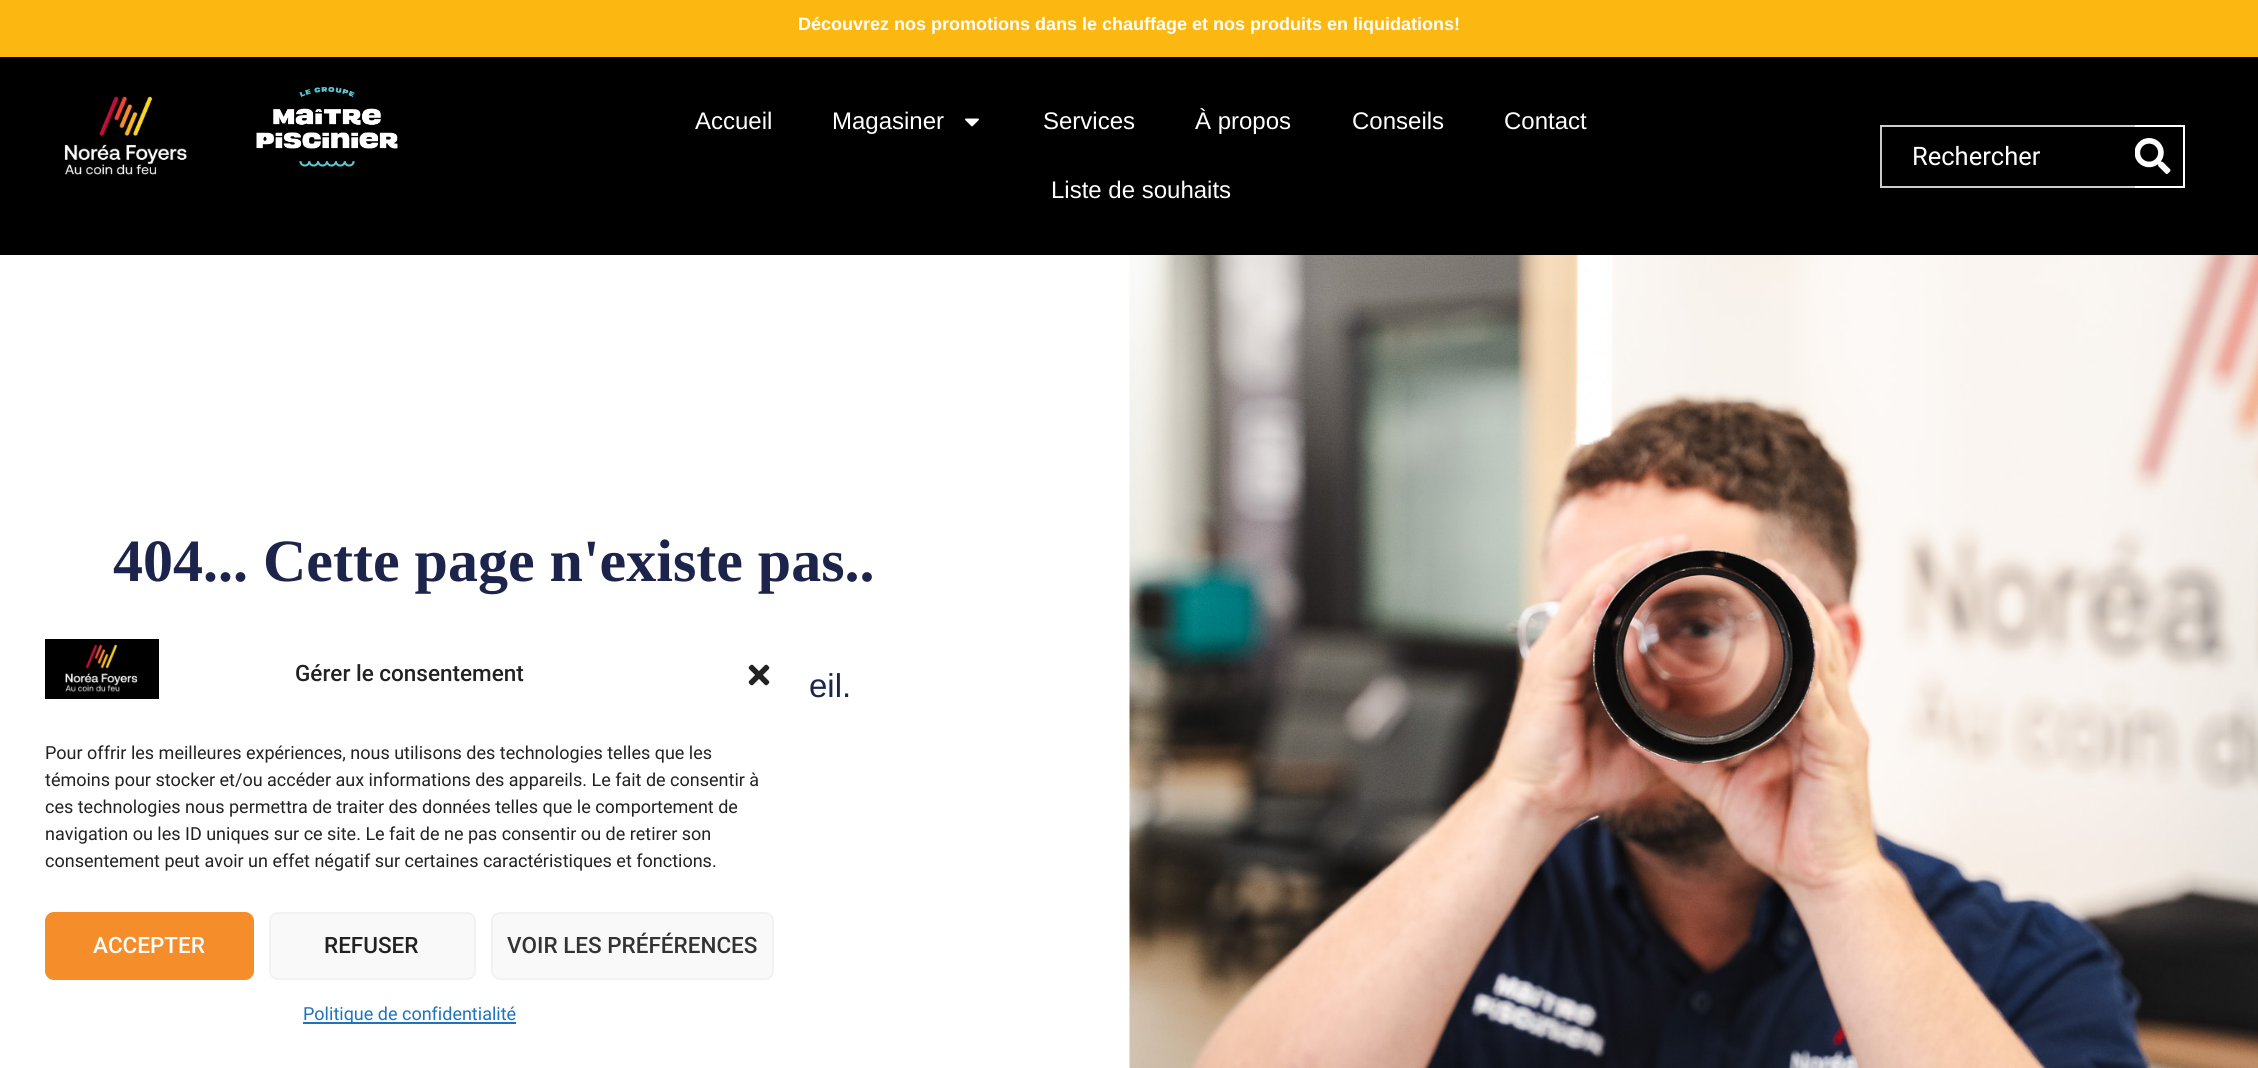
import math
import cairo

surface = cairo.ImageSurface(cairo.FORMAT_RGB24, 2258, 1068)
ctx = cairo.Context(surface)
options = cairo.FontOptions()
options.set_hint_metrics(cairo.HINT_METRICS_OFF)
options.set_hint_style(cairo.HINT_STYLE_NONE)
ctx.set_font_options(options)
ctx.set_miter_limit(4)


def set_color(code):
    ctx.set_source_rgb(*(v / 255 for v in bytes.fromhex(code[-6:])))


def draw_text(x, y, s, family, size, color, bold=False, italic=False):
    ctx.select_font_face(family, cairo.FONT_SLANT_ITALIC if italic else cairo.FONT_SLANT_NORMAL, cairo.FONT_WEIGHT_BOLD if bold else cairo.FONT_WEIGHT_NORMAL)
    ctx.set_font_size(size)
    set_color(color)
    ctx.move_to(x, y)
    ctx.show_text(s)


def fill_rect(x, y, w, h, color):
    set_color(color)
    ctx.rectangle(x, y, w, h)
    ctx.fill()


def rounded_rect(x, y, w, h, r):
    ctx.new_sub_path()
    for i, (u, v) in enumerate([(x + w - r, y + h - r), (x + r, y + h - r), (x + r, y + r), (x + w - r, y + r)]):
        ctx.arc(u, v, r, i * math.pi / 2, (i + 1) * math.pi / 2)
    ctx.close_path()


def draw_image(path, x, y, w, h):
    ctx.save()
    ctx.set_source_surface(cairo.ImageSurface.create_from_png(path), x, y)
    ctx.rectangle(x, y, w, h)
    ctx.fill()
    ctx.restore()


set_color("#ffffff")
ctx.paint()
fill_rect(0, 0, 2258, 57, "#fcb811")
draw_text(798, 30, "Découvrez nos promotions dans le chauffage et nos produits en liquidations!", "Liberation Sans", 18, "#ffffff", bold=True)
fill_rect(0, 57, 2258, 198, "#000000")
draw_image("assets/img1.png", 64, 96, 123, 79)
draw_image("assets/img2.png", 256, 87, 142, 80)
draw_text(695, 129, "Accueil", "Liberation Sans", 24, "#ffffff")
draw_text(832, 129, "Magasiner", "Liberation Sans", 24, "#ffffff")
draw_image("assets/img3.png", 965, 118, 14, 9)
draw_text(1043, 129, "Services", "Liberation Sans", 24, "#ffffff")
draw_text(1195, 129, "À propos", "Liberation Sans", 24, "#ffffff")
draw_text(1352, 129, "Conseils", "Liberation Sans", 24, "#ffffff")
draw_text(1504, 129, "Contact", "Liberation Sans", 24, "#ffffff")
draw_text(1051, 198, "Liste de souhaits", "Liberation Sans", 24, "#ffffff")
fill_rect(1880, 125, 255, 2, "#cdcdcd")
fill_rect(1880, 186, 255, 2, "#cdcdcd")
fill_rect(1880, 125, 2, 63, "#cdcdcd")
draw_text(1912, 165, "Rechercher", "Roboto", 25.5, "#ffffff")
fill_rect(2135, 125, 49, 2, "#ffffff")
fill_rect(2183, 125, 2, 63, "#ffffff")
fill_rect(2135, 186, 49, 2, "#ffffff")
draw_image("assets/img4.png", 2135, 138, 36, 36)
draw_text(113, 581, "404... Cette page n'existe pas..", "Liberation Serif", 60, "#1c244b", bold=True)
draw_text(809, 697, "eil.", "Liberation Sans", 33, "#1c244b")
draw_image("assets/img5.png", 1129, 255, 1129, 813)
draw_image("assets/img6.png", 45, 639, 114, 60)
draw_text(295, 681, "Gérer le consentement", "Roboto Medium", 22.5, "#222222")
draw_image("assets/img7.png", 748, 664, 22, 22)
draw_text(45, 759, "Pour offrir les meilleures expériences, nous utilisons des technologies telles que les", "Roboto", 18, "#222222")
draw_text(45, 786, "témoins pour stocker et/ou accéder aux informations des appareils. Le fait de consentir à", "Roboto", 18, "#222222")
draw_text(45, 813, "ces technologies nous permettra de traiter des données telles que le comportement de", "Roboto", 18, "#222222")
draw_text(45, 840, "navigation ou les ID uniques sur ce site. Le fait de ne pas consentir ou de retirer son", "Roboto", 18, "#222222")
draw_text(45, 867, "consentement peut avoir un effet négatif sur certaines caractéristiques et fonctions.", "Roboto", 18, "#222222")
set_color("#f68d2b")
rounded_rect(46, 913, 207, 66, 8)
ctx.fill_preserve()
ctx.stroke()
draw_text(93, 953, "ACCEPTER", "Roboto Medium", 22.5, "#ffffff")
set_color("#f9f9f9")
rounded_rect(270, 913, 205, 66, 8)
ctx.fill_preserve()
set_color("#f2f2f2")
ctx.stroke()
draw_text(324, 953, "REFUSER", "Roboto Medium", 22.5, "#222222")
set_color("#f9f9f9")
rounded_rect(492, 913, 281, 66, 8)
ctx.fill_preserve()
set_color("#f2f2f2")
ctx.stroke()
draw_text(507, 953, "VOIR LES PRÉFÉRENCES", "Roboto Medium", 22.5, "#333333")
fill_rect(303, 1022, 213, 2, "#1e73be")
draw_text(303, 1020, "Politique de confidentialité", "Roboto", 18, "#1e73be")
surface.write_to_png("output.png")
